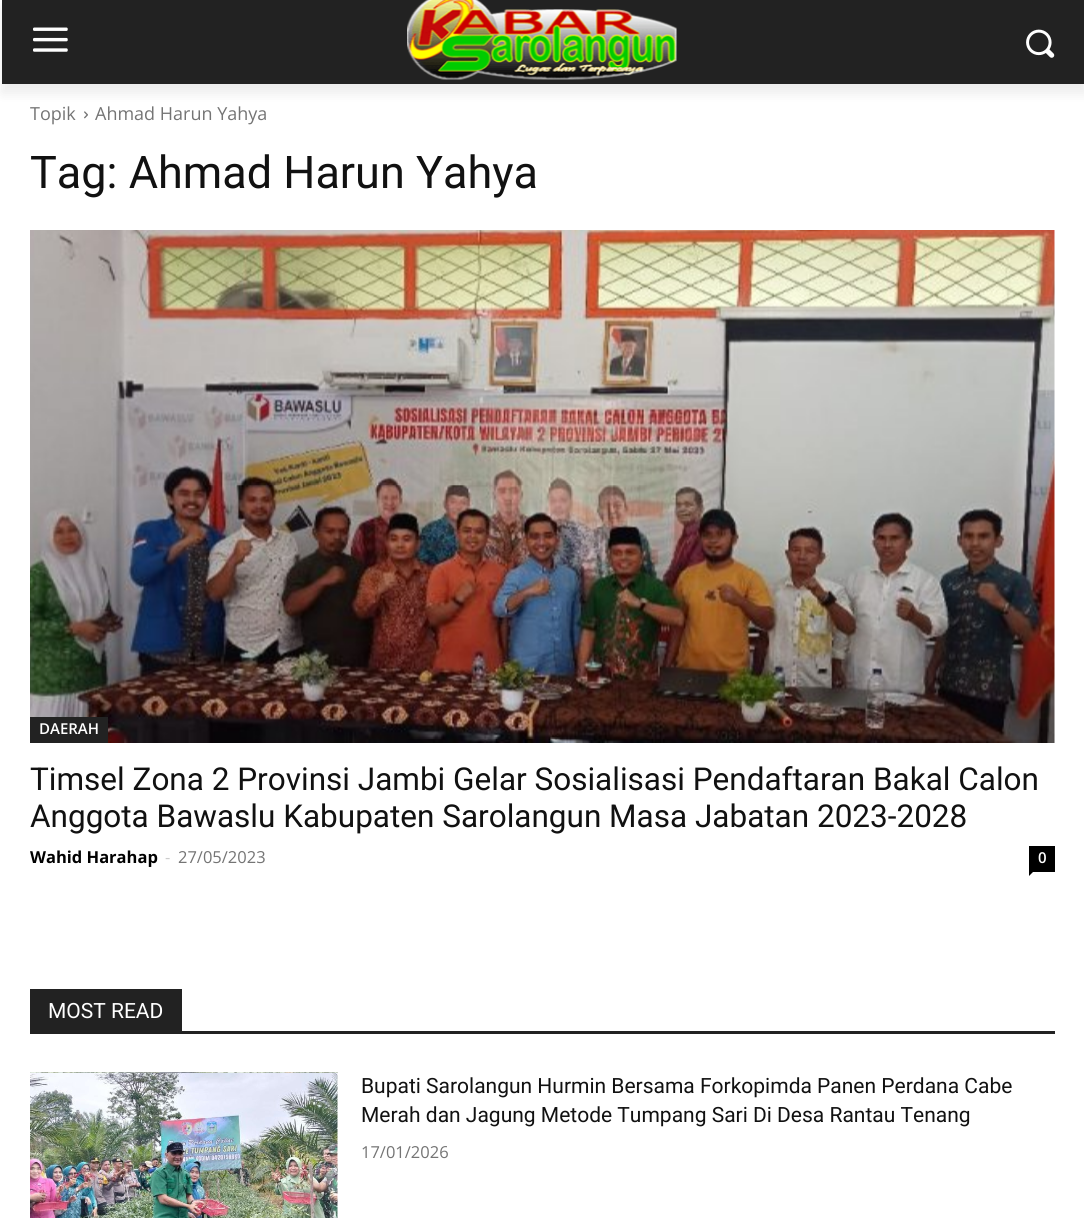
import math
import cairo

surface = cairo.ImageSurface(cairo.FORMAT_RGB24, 1084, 1218)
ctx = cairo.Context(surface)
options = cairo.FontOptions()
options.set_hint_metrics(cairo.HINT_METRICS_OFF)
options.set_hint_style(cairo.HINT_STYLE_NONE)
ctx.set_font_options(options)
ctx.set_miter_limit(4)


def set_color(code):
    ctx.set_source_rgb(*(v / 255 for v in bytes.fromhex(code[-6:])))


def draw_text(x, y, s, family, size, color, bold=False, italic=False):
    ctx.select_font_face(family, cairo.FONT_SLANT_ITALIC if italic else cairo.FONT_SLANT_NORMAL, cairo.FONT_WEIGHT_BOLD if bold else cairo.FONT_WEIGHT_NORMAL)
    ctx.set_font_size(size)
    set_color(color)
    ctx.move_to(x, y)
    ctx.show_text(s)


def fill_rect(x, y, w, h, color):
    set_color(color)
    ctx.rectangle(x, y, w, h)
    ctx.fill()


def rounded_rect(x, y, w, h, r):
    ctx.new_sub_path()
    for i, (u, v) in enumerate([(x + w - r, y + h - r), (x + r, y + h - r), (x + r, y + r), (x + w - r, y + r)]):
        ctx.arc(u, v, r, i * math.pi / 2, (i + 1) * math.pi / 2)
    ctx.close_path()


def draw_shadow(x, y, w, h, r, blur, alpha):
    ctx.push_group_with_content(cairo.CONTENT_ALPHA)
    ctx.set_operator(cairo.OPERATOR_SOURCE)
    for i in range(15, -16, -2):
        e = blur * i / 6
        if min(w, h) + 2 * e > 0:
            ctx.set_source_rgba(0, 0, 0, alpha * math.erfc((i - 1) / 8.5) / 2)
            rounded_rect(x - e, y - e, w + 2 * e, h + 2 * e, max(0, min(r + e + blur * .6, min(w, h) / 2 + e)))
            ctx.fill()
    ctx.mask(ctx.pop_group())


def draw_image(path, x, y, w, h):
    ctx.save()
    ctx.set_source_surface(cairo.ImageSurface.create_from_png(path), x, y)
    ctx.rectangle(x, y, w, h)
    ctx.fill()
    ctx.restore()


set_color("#ffffff")
ctx.paint()
fill_rect(2, 0, 1082, 84, "#222222")
draw_image("assets/img1.png", 33, 27, 35, 25)
draw_image("assets/img2.png", 407, 0, 270, 80)
draw_image("assets/img3.png", 1026, 29, 29, 29)
draw_image("assets/img4.png", 84, 111, 4, 8)
ctx.save()
ctx.set_fill_rule(cairo.FILL_RULE_EVEN_ODD)
ctx.new_path()
ctx.move_to(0, 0)
ctx.line_to(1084, 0)
ctx.line_to(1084, 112)
ctx.line_to(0, 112)
ctx.close_path()
ctx.move_to(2, 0)
ctx.line_to(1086, 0)
ctx.line_to(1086, 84)
ctx.line_to(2, 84)
ctx.close_path()
ctx.clip()
set_color("#000000")
draw_shadow(2, 9, 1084, 84, 0, 6, 0.08)
ctx.restore()
draw_text(30, 120, "Topik", "Open Sans", 18, "#747474")
draw_text(95, 120, "Ahmad Harun Yahya", "Open Sans", 18, "#747474")
draw_text(30, 188, "Tag: Ahmad Harun Yahya", "Roboto", 45, "#111111")
draw_image("assets/img5.png", 30, 230, 1025, 513)
fill_rect(30, 717, 78, 26, "#222222")
draw_text(39, 734, "DAERAH", "Open Sans SemiBold", 15, "#ffffff")
draw_text(30, 790, "Timsel Zona 2 Provinsi Jambi Gelar Sosialisasi Pendaftaran Bakal Calon", "Roboto", 31.5, "#111111")
draw_text(30, 827, "Anggota Bawaslu Kabupaten Sarolangun Masa Jabatan 2023-2028", "Roboto", 31.5, "#111111")
draw_text(30, 863, "Wahid Harahap", "Open Sans", 16.5, "#000000", bold=True)
draw_text(165, 863, "-", "Open Sans", 16.5, "#cccccc")
draw_text(178, 863, "27/05/2023", "Open Sans", 16.5, "#747474")
fill_rect(1029, 846, 26, 26, "#000000")
draw_text(1038, 863, "0", "Open Sans SemiBold", 15, "#ffffff")
set_color("#000000")
ctx.new_path()
ctx.move_to(1029, 871.5)
ctx.line_to(1033.5, 871.5)
ctx.line_to(1029, 876)
ctx.close_path()
ctx.fill()
fill_rect(30, 1031, 1025, 3, "#222222")
fill_rect(30, 989, 152, 42, "#222222")
draw_text(48, 1018, "MOST READ", "Roboto", 21, "#ffffff")
draw_image("assets/img6.png", 30, 1072, 308, 146)
draw_text(361, 1093, "Bupati Sarolangun Hurmin Bersama Forkopimda Panen Perdana Cabe", "Roboto", 21, "#111111")
draw_text(361, 1122, "Merah dan Jagung Metode Tumpang Sari Di Desa Rantau Tenang", "Roboto", 21, "#111111")
draw_text(361, 1158, "17/01/2026", "Open Sans", 16.5, "#747474")
surface.write_to_png("output.png")
